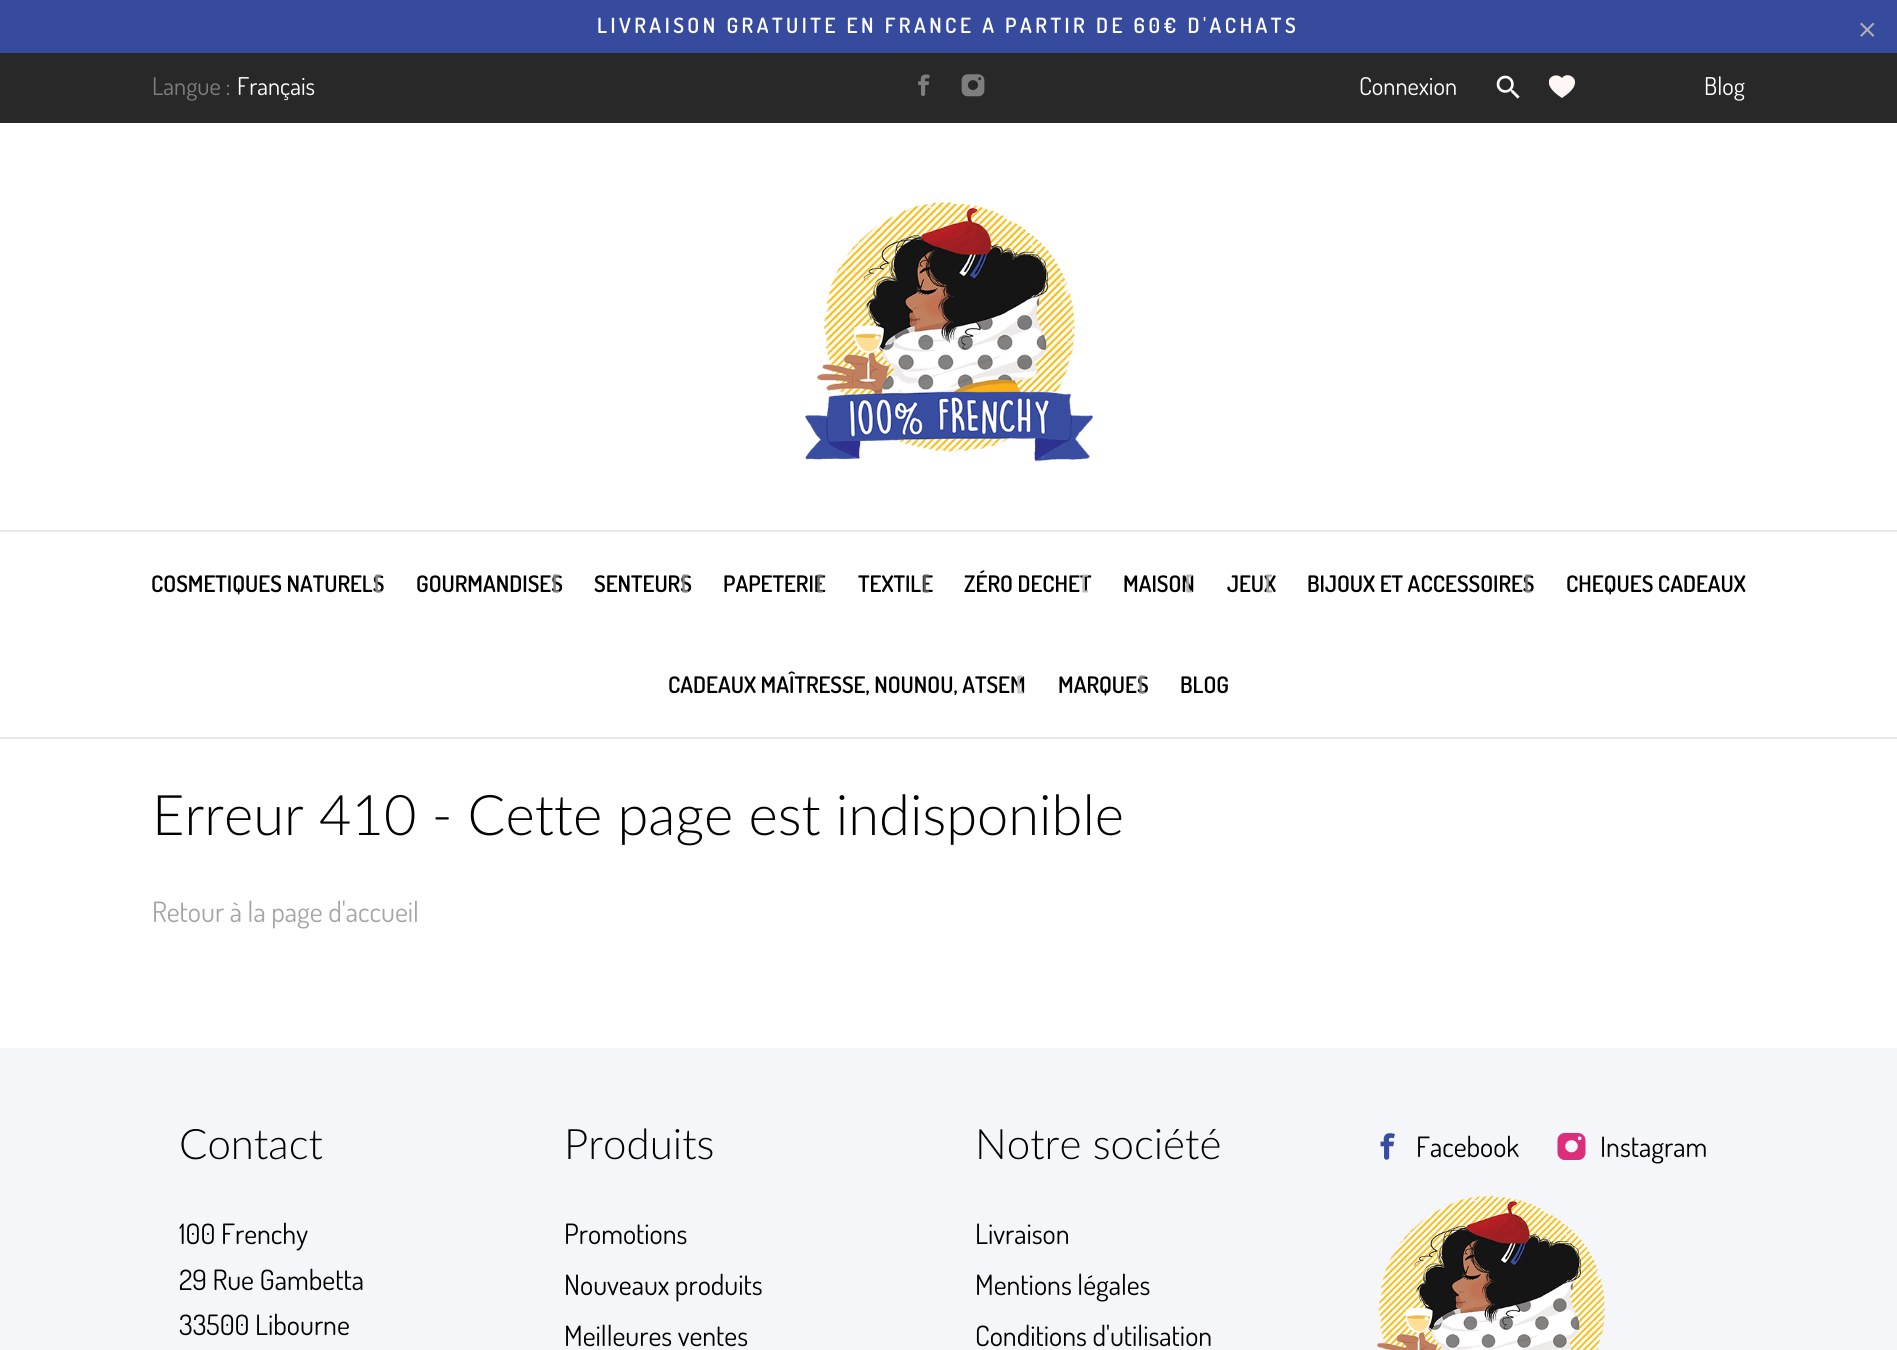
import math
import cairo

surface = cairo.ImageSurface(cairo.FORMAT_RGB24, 1897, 1350)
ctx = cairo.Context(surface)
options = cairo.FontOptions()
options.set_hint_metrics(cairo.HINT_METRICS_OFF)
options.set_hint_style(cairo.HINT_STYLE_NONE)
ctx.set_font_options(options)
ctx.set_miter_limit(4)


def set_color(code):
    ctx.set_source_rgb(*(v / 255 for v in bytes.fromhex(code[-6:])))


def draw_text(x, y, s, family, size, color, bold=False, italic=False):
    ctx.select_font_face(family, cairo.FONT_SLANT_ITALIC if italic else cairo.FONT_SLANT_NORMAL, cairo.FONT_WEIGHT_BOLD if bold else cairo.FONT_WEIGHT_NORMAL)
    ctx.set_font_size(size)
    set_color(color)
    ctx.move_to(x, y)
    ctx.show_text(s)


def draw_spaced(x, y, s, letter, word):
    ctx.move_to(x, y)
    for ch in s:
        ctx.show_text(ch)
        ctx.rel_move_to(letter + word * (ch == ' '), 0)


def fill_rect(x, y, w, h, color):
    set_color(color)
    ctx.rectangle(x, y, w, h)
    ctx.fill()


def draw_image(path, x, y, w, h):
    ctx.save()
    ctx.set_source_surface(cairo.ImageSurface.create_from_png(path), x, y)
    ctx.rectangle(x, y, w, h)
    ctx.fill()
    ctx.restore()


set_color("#ffffff")
ctx.paint()
fill_rect(0, 0, 1897, 53, "#364a9e")
ctx.select_font_face("Dosis SemiBold")
ctx.set_font_size(21)
set_color("#ffffff")
draw_spaced(597, 33, "LIVRAISON GRATUITE EN FRANCE A PARTIR DE 60€ D'ACHATS", 3.5, 0)
draw_image("assets/img1.png", 1860, 22, 15, 15)
fill_rect(0, 53, 1897, 70, "#282828")
draw_text(152, 95, "Langue :", "Dosis", 24.5, "#7e7e7e")
draw_text(237, 95, "Français", "Dosis", 24.5, "#ffffff")
draw_image("assets/img2.png", 918, 74, 12, 22)
draw_image("assets/img3.png", 961, 74, 24, 23)
draw_text(1359, 95, "Connexion", "Dosis", 24.5, "#ffffff")
draw_image("assets/img4.png", 1496, 75, 24, 24)
ctx.save()
ctx.rectangle(1549, 75, 26, 23)
ctx.clip()
set_color("#fff6f6")
ctx.set_fill_rule(cairo.FILL_RULE_EVEN_ODD)
ctx.new_path()
ctx.move_to(1571, 76)
ctx.curve_to(1568, 74.5, 1564, 75, 1562, 78)
ctx.curve_to(1555, 70, 1536, 81.5, 1562, 98)
ctx.curve_to(1567, 94.5, 1577.5, 87.5, 1574.5, 79.5)
ctx.curve_to(1574, 78, 1572.5, 77, 1571, 76)
ctx.close_path()
ctx.fill()
ctx.restore()
draw_text(1704, 95, "Blog", "Dosis", 24.5, "#ffffff")
draw_image("assets/img5.png", 804, 201, 289, 261)
fill_rect(0, 530, 1897, 2, "#e8e8e8")
fill_rect(0, 737, 1897, 2, "#e8e8e8")
draw_text(151, 592, "COSMETIQUES NATURELS", "Dosis SemiBold", 22.75, "#000000")
draw_text(374, 592, "[", "Dosis SemiBold", 22.75, "#848484")
draw_text(416, 592, "GOURMANDISES", "Dosis SemiBold", 22.75, "#000000")
draw_text(552, 592, "[", "Dosis SemiBold", 22.75, "#7e7e7e")
draw_text(594, 592, "SENTEURS", "Dosis SemiBold", 22.75, "#000000")
draw_text(681, 592, "[", "Dosis SemiBold", 22.75, "#848484")
draw_text(723, 592, "PAPETERIE", "Dosis SemiBold", 22.75, "#000000")
draw_text(816, 592, "[", "Dosis SemiBold", 22.75, "#727272")
draw_text(858, 592, "TEXTILE", "Dosis SemiBold", 22.75, "#000000")
draw_text(922, 592, "[", "Dosis SemiBold", 22.75, "#5b5b5b")
draw_text(964, 592, "ZÉRO DECHET", "Dosis SemiBold", 22.75, "#000000")
draw_text(1081, 592, "[", "Dosis SemiBold", 22.75, "#bcbcbc")
draw_text(1123, 592, "MAISON", "Dosis SemiBold", 22.75, "#000000")
draw_text(1185, 592, "[", "Dosis SemiBold", 22.75, "#b0b0b0")
draw_text(1227, 592, "JEUX", "Dosis SemiBold", 22.75, "#000000")
draw_text(1265, 592, "[", "Dosis SemiBold", 22.75, "#a5a5a5")
draw_text(1307, 592, "BIJOUX ET ACCESSOIRES", "Dosis SemiBold", 22.75, "#000000")
draw_text(1524, 592, "[", "Dosis SemiBold", 22.75, "#7e7e7e")
draw_text(1566, 592, "CHEQUES CADEAUX", "Dosis SemiBold", 22.75, "#000000")
draw_text(668, 693, "CADEAUX MAÎTRESSE, NOUNOU, ATSEM", "Dosis SemiBold", 22.75, "#000000")
draw_text(1016, 693, "[", "Dosis SemiBold", 22.75, "#c3c3c3")
draw_text(1058, 693, "MARQUES", "Dosis SemiBold", 22.75, "#000000")
draw_text(1138, 693, "[", "Dosis SemiBold", 22.75, "#848484")
draw_text(1180, 693, "BLOG", "Dosis SemiBold", 22.75, "#000000")
draw_text(152, 835, "Erreur 410 - Cette page est indisponible", "Lato Light", 56, "#000000")
draw_text(152, 922, "Retour à la page d'accueil", "Dosis", 28, "#a5a5a5")
fill_rect(0, 1048, 1897, 302, "#f5f6fa")
draw_text(179, 1159, "Contact", "Lato Light", 42, "#000000")
draw_text(179, 1244, "100 Frenchy", "Dosis", 28, "#000000")
draw_text(179, 1290, "29 Rue Gambetta", "Dosis", 28, "#000000")
draw_text(179, 1335, "33500 Libourne", "Dosis", 28, "#000000")
draw_text(564, 1159, "Produits", "Lato Light", 42, "#000000")
draw_text(564, 1244, "Promotions", "Dosis", 28, "#000000")
draw_text(564, 1295, "Nouveaux produits", "Dosis", 28, "#000000")
draw_text(564, 1346, "Meilleures ventes", "Dosis", 28, "#000000")
draw_text(975, 1159, "Notre société", "Lato Light", 42, "#000000")
draw_text(975, 1244, "Livraison", "Dosis", 28, "#000000")
draw_text(975, 1295, "Mentions légales", "Dosis", 28, "#000000")
draw_text(975, 1346, "Conditions d'utilisation", "Dosis", 28, "#000000")
draw_image("assets/img6.png", 1380, 1133, 15, 27)
draw_text(1416, 1157, "Facebook", "Dosis", 28, "#000000")
draw_image("assets/img7.png", 1557, 1132, 29, 28)
draw_text(1600, 1157, "Instagram", "Dosis", 28, "#000000")
draw_image("assets/img8.png", 1377, 1195, 229, 155)
surface.write_to_png("output.png")
